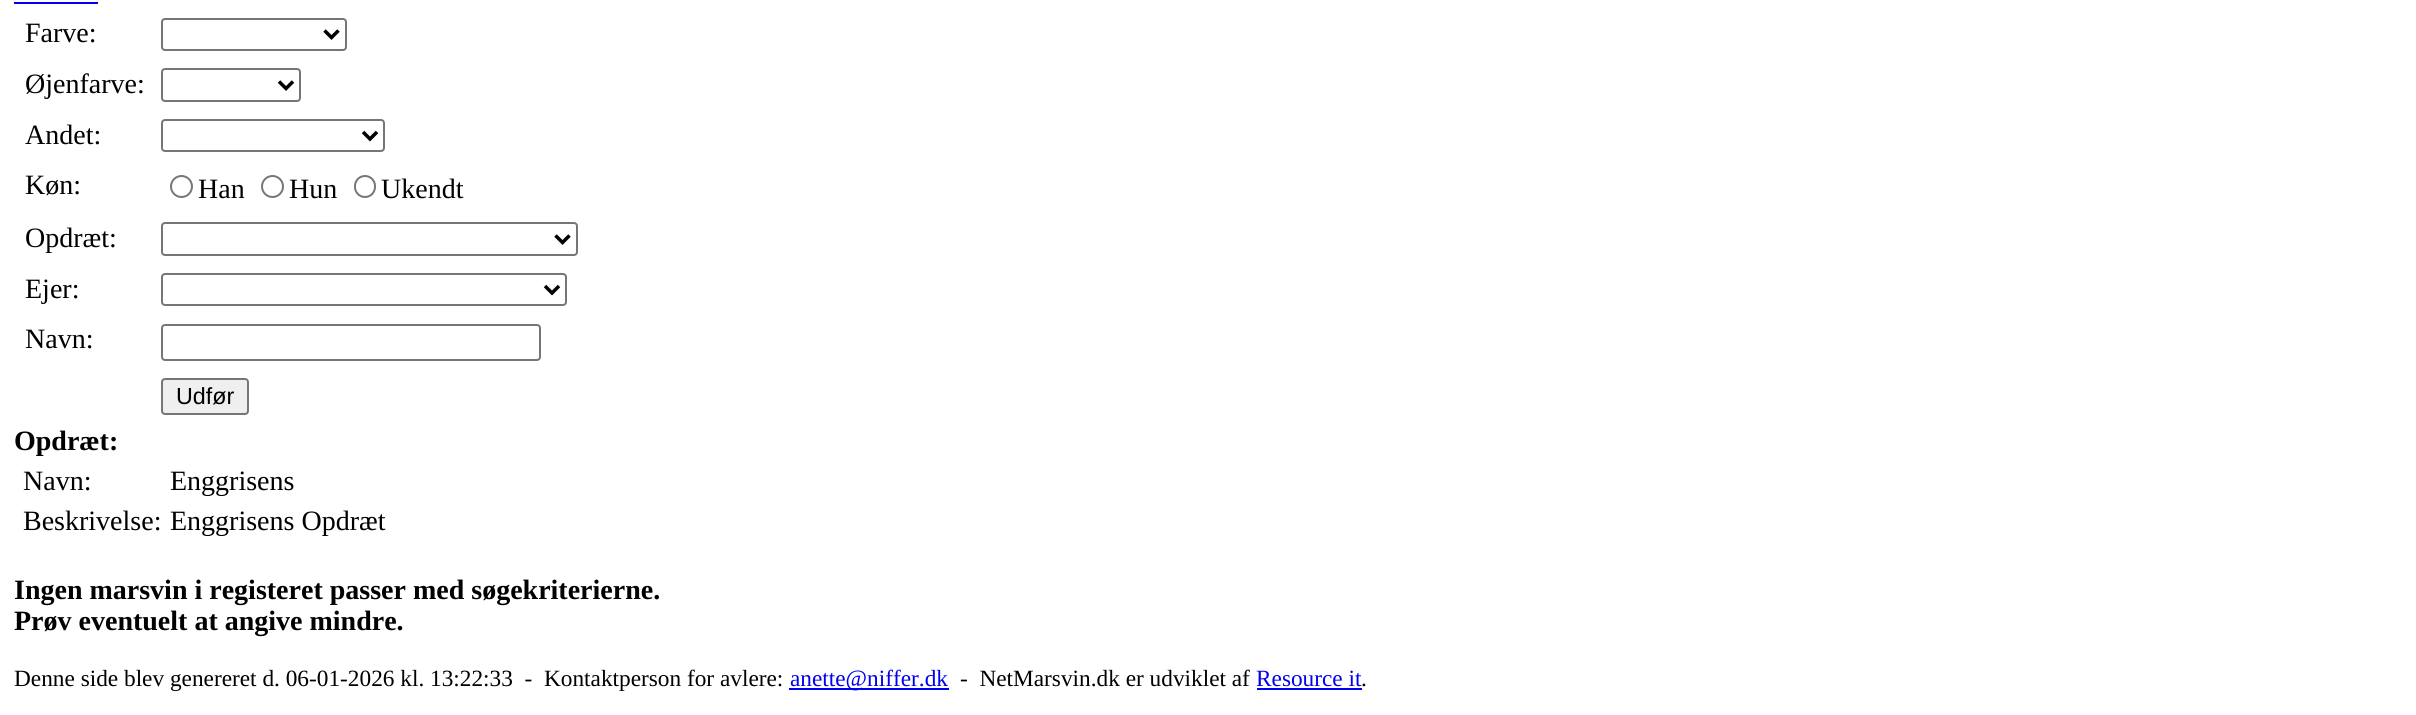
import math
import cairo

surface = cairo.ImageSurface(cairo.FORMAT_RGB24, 2416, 715)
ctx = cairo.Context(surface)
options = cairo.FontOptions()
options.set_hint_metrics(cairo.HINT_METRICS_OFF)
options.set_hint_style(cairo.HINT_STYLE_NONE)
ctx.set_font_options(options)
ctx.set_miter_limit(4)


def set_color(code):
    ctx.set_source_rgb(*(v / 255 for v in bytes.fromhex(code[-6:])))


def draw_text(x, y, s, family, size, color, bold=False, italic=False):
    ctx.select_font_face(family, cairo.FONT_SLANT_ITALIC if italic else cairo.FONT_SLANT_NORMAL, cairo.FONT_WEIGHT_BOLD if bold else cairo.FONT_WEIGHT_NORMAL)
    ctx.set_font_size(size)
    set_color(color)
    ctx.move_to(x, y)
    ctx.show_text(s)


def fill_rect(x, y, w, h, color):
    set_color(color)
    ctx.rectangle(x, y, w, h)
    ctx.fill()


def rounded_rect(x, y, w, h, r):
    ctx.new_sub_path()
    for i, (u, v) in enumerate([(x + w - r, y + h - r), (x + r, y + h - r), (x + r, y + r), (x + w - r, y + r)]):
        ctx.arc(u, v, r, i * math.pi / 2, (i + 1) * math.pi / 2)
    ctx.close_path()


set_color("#ffffff")
ctx.paint()
fill_rect(14, 2, 84, 2, "#0000ee")
draw_text(25, 42, "Farve:", "Liberation Serif", 28, "#000000")
rounded_rect(162, 19, 184, 31, 3)
set_color("#767676")
ctx.stroke()
ctx.new_path()
ctx.move_to(324.5, 30.5)
ctx.line_to(331.5, 37.5)
ctx.line_to(338.5, 30.5)
set_color("#000000")
ctx.set_line_width(3.5)
ctx.stroke()
draw_text(25, 93, "Øjenfarve:", "Liberation Serif", 28, "#000000")
rounded_rect(162, 69, 138, 32, 3)
set_color("#767676")
ctx.set_line_width(2)
ctx.stroke()
ctx.new_path()
ctx.move_to(279, 81.5)
ctx.line_to(286, 88.5)
ctx.line_to(293, 81.5)
set_color("#000000")
ctx.set_line_width(3.5)
ctx.stroke()
draw_text(25, 144, "Andet:", "Liberation Serif", 28, "#000000")
rounded_rect(162, 120, 222, 31, 3)
set_color("#767676")
ctx.set_line_width(2)
ctx.stroke()
ctx.new_path()
ctx.move_to(363, 132)
ctx.line_to(370, 139)
ctx.line_to(377, 132)
set_color("#000000")
ctx.set_line_width(3.5)
ctx.stroke()
draw_text(25, 194, "Køn:", "Liberation Serif", 28, "#000000")
ctx.new_path()
ctx.arc(181.5, 186.5, 10.5, 0, 2 * math.pi)
set_color("#767676")
ctx.set_line_width(2)
ctx.stroke()
draw_text(198, 198, "Han", "Liberation Serif", 28, "#000000")
ctx.new_path()
ctx.arc(272.5, 186.5, 10.5, 0, 2 * math.pi)
set_color("#767676")
ctx.stroke()
draw_text(289, 198, "Hun", "Liberation Serif", 28, "#000000")
rounded_rect(355, 176, 20, 21, 10)
set_color("#767676")
ctx.stroke()
draw_text(381, 198, "Ukendt", "Liberation Serif", 28, "#000000")
draw_text(25, 247, "Opdræt:", "Liberation Serif", 28, "#000000")
rounded_rect(162, 223, 415, 32, 3)
set_color("#767676")
ctx.stroke()
ctx.new_path()
ctx.move_to(555.5, 235.5)
ctx.line_to(562.5, 242.5)
ctx.line_to(569.5, 235.5)
set_color("#000000")
ctx.set_line_width(3.5)
ctx.stroke()
draw_text(25, 298, "Ejer:", "Liberation Serif", 28, "#000000")
rounded_rect(162, 274, 404, 31, 3)
set_color("#767676")
ctx.set_line_width(2)
ctx.stroke()
ctx.new_path()
ctx.move_to(545, 286)
ctx.line_to(552, 293)
ctx.line_to(559, 286)
set_color("#000000")
ctx.set_line_width(3.5)
ctx.stroke()
draw_text(25, 348, "Navn:", "Liberation Serif", 28, "#000000")
rounded_rect(162, 325, 378, 35, 3)
set_color("#767676")
ctx.set_line_width(2)
ctx.stroke()
set_color("#efefef")
rounded_rect(162, 379, 86, 35, 3)
ctx.fill_preserve()
set_color("#767676")
ctx.stroke()
draw_text(176, 404, "Udfør", "Liberation Sans", 23.3, "#000000")
draw_text(14, 450, "Opdræt:", "Liberation Serif", 28, "#000000", bold=True)
draw_text(23, 490, "Navn:", "Liberation Serif", 28, "#000000")
draw_text(170, 490, "Enggrisens", "Liberation Serif", 28, "#000000")
draw_text(23, 530, "Beskrivelse:", "Liberation Serif", 28, "#000000")
draw_text(170, 530, "Enggrisens Opdræt", "Liberation Serif", 28, "#000000")
draw_text(14, 599, "Ingen marsvin i registeret passer med søgekriterierne.", "Liberation Serif", 28, "#000000", bold=True)
draw_text(14, 630, "Prøv eventuelt at angive mindre.", "Liberation Serif", 28, "#000000", bold=True)
draw_text(14, 686, "Denne side blev genereret d. 06-01-2026 kl. 13:22:33  -  Kontaktperson for avlere:", "Liberation Serif", 23.3, "#000000")
fill_rect(789, 688, 160, 2, "#0000ee")
draw_text(790, 686, "anette@niffer.dk", "Liberation Serif", 23.3, "#0000ee")
draw_text(960, 686, "-  NetMarsvin.dk er udviklet af", "Liberation Serif", 23.3, "#000000")
draw_text(1256, 686, "Resource it", "Liberation Serif", 23.3, "#0000ee")
draw_text(1361, 686, ".", "Liberation Serif", 23.3, "#000000")
fill_rect(1257, 688, 105, 2, "#0000ee")
surface.write_to_png("output.png")
